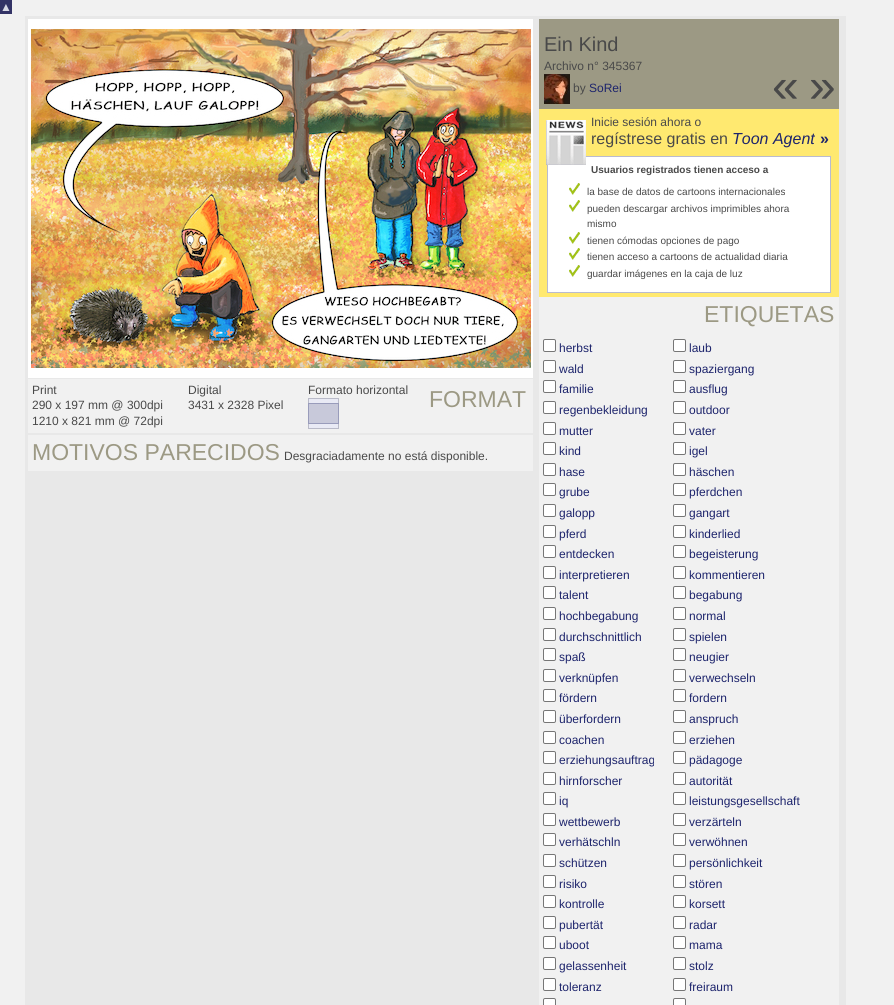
import math
import cairo

surface = cairo.ImageSurface(cairo.FORMAT_RGB24, 894, 1005)
ctx = cairo.Context(surface)
options = cairo.FontOptions()
options.set_hint_metrics(cairo.HINT_METRICS_OFF)
options.set_hint_style(cairo.HINT_STYLE_NONE)
ctx.set_font_options(options)
ctx.set_miter_limit(4)


def set_color(code):
    ctx.set_source_rgb(*(v / 255 for v in bytes.fromhex(code[-6:])))


def draw_text(x, y, s, family, size, color, bold=False, italic=False):
    ctx.select_font_face(family, cairo.FONT_SLANT_ITALIC if italic else cairo.FONT_SLANT_NORMAL, cairo.FONT_WEIGHT_BOLD if bold else cairo.FONT_WEIGHT_NORMAL)
    ctx.set_font_size(size)
    set_color(color)
    ctx.move_to(x, y)
    ctx.show_text(s)


def fill_rect(x, y, w, h, color):
    set_color(color)
    ctx.rectangle(x, y, w, h)
    ctx.fill()


def rounded_rect(x, y, w, h, r):
    ctx.new_sub_path()
    for i, (u, v) in enumerate([(x + w - r, y + h - r), (x + r, y + h - r), (x + r, y + r), (x + w - r, y + r)]):
        ctx.arc(u, v, r, i * math.pi / 2, (i + 1) * math.pi / 2)
    ctx.close_path()


def draw_image(path, x, y, w, h):
    ctx.save()
    ctx.set_source_surface(cairo.ImageSurface.create_from_png(path), x, y)
    ctx.rectangle(x, y, w, h)
    ctx.fill()
    ctx.restore()


set_color("#f1f1f1")
ctx.paint()
fill_rect(0, 0, 12, 14, "#333366")
draw_text(0, 11, "▲", "Liberation Sans", 12, "#d8d9e5")
fill_rect(25, 16, 821, 989, "#e8e8e8")
fill_rect(28, 19, 505, 359, "#ffffff")
draw_image("assets/img1.png", 31, 29, 500, 339)
fill_rect(28, 379, 505, 54, "#f1f1f1")
draw_text(32, 394, "Print", "Liberation Sans", 12, "#494949")
draw_text(32, 409, "290 x 197 mm @ 300dpi", "Liberation Sans", 12, "#494949")
draw_text(32, 425, "1210 x 821 mm @ 72dpi", "Liberation Sans", 12, "#494949")
draw_text(188, 394, "Digital", "Liberation Sans", 12, "#494949")
draw_text(188, 409, "3431 x 2328 Pixel", "Liberation Sans", 12, "#494949")
draw_text(308, 394, "Formato horizontal", "Liberation Sans", 12, "#494949")
draw_image("assets/img2.png", 308, 398, 31, 31)
draw_text(429, 407, "FORMAT", "Liberation Sans", 23, "#9c9984")
fill_rect(28, 435, 505, 36, "#f1f1f1")
draw_text(32, 460, "MOTIVOS PARECIDOS", "Liberation Sans", 23, "#9c9984")
draw_text(284, 460, "Desgraciadamente no está disponible.", "Liberation Sans", 12, "#494949")
fill_rect(539, 19, 300, 90, "#9c9984")
draw_text(544, 51, "Ein Kind", "Liberation Sans", 20, "#494949")
draw_text(544, 70, "Archivo n° 345367", "Liberation Sans", 12, "#494949")
draw_image("assets/img3.png", 544, 74, 26, 30)
draw_text(573, 92, "by", "Liberation Sans", 12, "#494949")
draw_text(589, 92, "SoRei", "Liberation Sans", 12, "#1d246c")
draw_text(772, 102, "«", "Liberation Sans", 48, "#494949")
draw_text(809, 102, "»", "Liberation Sans", 48, "#494949")
fill_rect(539, 109, 300, 188, "#ffe970")
set_color("#ffffff")
ctx.rectangle(547.5, 156.5, 283, 136)
ctx.fill_preserve()
set_color("#b9bbd0")
ctx.set_line_width(1)
ctx.stroke()
draw_image("assets/img4.png", 546, 120, 40, 45)
draw_text(591, 126, "Inicie sesión ahora o", "Liberation Sans", 12, "#494949")
draw_text(591, 144, "regístrese gratis en", "Liberation Sans", 16, "#494949")
draw_text(732, 144, "Toon Agent", "Liberation Sans", 16, "#1d246c", italic=True)
draw_text(820, 144, "»", "Liberation Sans", 16, "#1d246c", bold=True)
draw_text(591, 173, "Usuarios registrados tienen acceso a", "Liberation Sans", 10, "#494949", bold=True)
draw_image("assets/img5.png", 569, 183, 11, 12)
draw_text(587, 195, "la base de datos de cartoons internacionales", "Liberation Sans", 10, "#494949")
draw_image("assets/img5.png", 569, 200, 11, 12)
draw_text(587, 212, "pueden descargar archivos imprimibles ahora", "Liberation Sans", 10, "#494949")
draw_text(587, 227, "mismo", "Liberation Sans", 10, "#494949")
draw_image("assets/img5.png", 569, 232, 11, 12)
draw_text(587, 244, "tienen cómodas opciones de pago", "Liberation Sans", 10, "#494949")
draw_image("assets/img5.png", 569, 248, 11, 12)
draw_text(587, 260, "tienen acceso a cartoons de actualidad diaria", "Liberation Sans", 10, "#494949")
draw_image("assets/img5.png", 569, 265, 11, 12)
draw_text(587, 277, "guardar imágenes en la caja de luz", "Liberation Sans", 10, "#494949")
fill_rect(539, 297, 300, 708, "#f1f1f1")
draw_text(704, 322, "ETIQUETAS", "Liberation Sans", 23, "#9c9984")
set_color("#ffffff")
rounded_rect(543.5, 339.5, 12, 12, 1.5)
ctx.fill_preserve()
set_color("#767676")
ctx.stroke()
draw_text(559, 352, "herbst", "Liberation Sans", 12, "#1d246c")
set_color("#ffffff")
rounded_rect(673.5, 339.5, 12, 12, 1.5)
ctx.fill_preserve()
set_color("#767676")
ctx.stroke()
draw_text(689, 352, "laub", "Liberation Sans", 12, "#1d246c")
set_color("#ffffff")
rounded_rect(543.5, 360.5, 12, 12, 1.5)
ctx.fill_preserve()
set_color("#767676")
ctx.stroke()
draw_text(559, 373, "wald", "Liberation Sans", 12, "#1d246c")
set_color("#ffffff")
rounded_rect(673.5, 360.5, 12, 12, 1.5)
ctx.fill_preserve()
set_color("#767676")
ctx.stroke()
draw_text(689, 373, "spaziergang", "Liberation Sans", 12, "#1d246c")
set_color("#ffffff")
rounded_rect(543.5, 380.5, 12, 12, 1.5)
ctx.fill_preserve()
set_color("#767676")
ctx.stroke()
draw_text(559, 393, "familie", "Liberation Sans", 12, "#1d246c")
set_color("#ffffff")
rounded_rect(673.5, 380.5, 12, 12, 1.5)
ctx.fill_preserve()
set_color("#767676")
ctx.stroke()
draw_text(689, 393, "ausflug", "Liberation Sans", 12, "#1d246c")
set_color("#ffffff")
rounded_rect(543.5, 401.5, 12, 12, 1.5)
ctx.fill_preserve()
set_color("#767676")
ctx.stroke()
draw_text(559, 414, "regenbekleidung", "Liberation Sans", 12, "#1d246c")
set_color("#ffffff")
rounded_rect(673.5, 401.5, 12, 12, 1.5)
ctx.fill_preserve()
set_color("#767676")
ctx.stroke()
draw_text(689, 414, "outdoor", "Liberation Sans", 12, "#1d246c")
set_color("#ffffff")
rounded_rect(543.5, 422.5, 12, 12, 1.5)
ctx.fill_preserve()
set_color("#767676")
ctx.stroke()
draw_text(559, 435, "mutter", "Liberation Sans", 12, "#1d246c")
set_color("#ffffff")
rounded_rect(673.5, 422.5, 12, 12, 1.5)
ctx.fill_preserve()
set_color("#767676")
ctx.stroke()
draw_text(689, 435, "vater", "Liberation Sans", 12, "#1d246c")
set_color("#ffffff")
rounded_rect(543.5, 442.5, 12, 12, 1.5)
ctx.fill_preserve()
set_color("#767676")
ctx.stroke()
draw_text(559, 455, "kind", "Liberation Sans", 12, "#1d246c")
set_color("#ffffff")
rounded_rect(673.5, 442.5, 12, 12, 1.5)
ctx.fill_preserve()
set_color("#767676")
ctx.stroke()
draw_text(689, 455, "igel", "Liberation Sans", 12, "#1d246c")
set_color("#ffffff")
rounded_rect(543.5, 463.5, 12, 12, 1.5)
ctx.fill_preserve()
set_color("#767676")
ctx.stroke()
draw_text(559, 476, "hase", "Liberation Sans", 12, "#1d246c")
set_color("#ffffff")
rounded_rect(673.5, 463.5, 12, 12, 1.5)
ctx.fill_preserve()
set_color("#767676")
ctx.stroke()
draw_text(689, 476, "häschen", "Liberation Sans", 12, "#1d246c")
set_color("#ffffff")
rounded_rect(543.5, 483.5, 12, 12, 1.5)
ctx.fill_preserve()
set_color("#767676")
ctx.stroke()
draw_text(559, 496, "grube", "Liberation Sans", 12, "#1d246c")
set_color("#ffffff")
rounded_rect(673.5, 483.5, 12, 12, 1.5)
ctx.fill_preserve()
set_color("#767676")
ctx.stroke()
draw_text(689, 496, "pferdchen", "Liberation Sans", 12, "#1d246c")
set_color("#ffffff")
rounded_rect(543.5, 504.5, 12, 12, 1.5)
ctx.fill_preserve()
set_color("#767676")
ctx.stroke()
draw_text(559, 517, "galopp", "Liberation Sans", 12, "#1d246c")
set_color("#ffffff")
rounded_rect(673.5, 504.5, 12, 12, 1.5)
ctx.fill_preserve()
set_color("#767676")
ctx.stroke()
draw_text(689, 517, "gangart", "Liberation Sans", 12, "#1d246c")
set_color("#ffffff")
rounded_rect(543.5, 525.5, 12, 12, 1.5)
ctx.fill_preserve()
set_color("#767676")
ctx.stroke()
draw_text(559, 538, "pferd", "Liberation Sans", 12, "#1d246c")
set_color("#ffffff")
rounded_rect(673.5, 525.5, 12, 12, 1.5)
ctx.fill_preserve()
set_color("#767676")
ctx.stroke()
draw_text(689, 538, "kinderlied", "Liberation Sans", 12, "#1d246c")
set_color("#ffffff")
rounded_rect(543.5, 545.5, 12, 12, 1.5)
ctx.fill_preserve()
set_color("#767676")
ctx.stroke()
draw_text(559, 558, "entdecken", "Liberation Sans", 12, "#1d246c")
set_color("#ffffff")
rounded_rect(673.5, 545.5, 12, 12, 1.5)
ctx.fill_preserve()
set_color("#767676")
ctx.stroke()
draw_text(689, 558, "begeisterung", "Liberation Sans", 12, "#1d246c")
set_color("#ffffff")
rounded_rect(543.5, 566.5, 12, 12, 1.5)
ctx.fill_preserve()
set_color("#767676")
ctx.stroke()
draw_text(559, 579, "interpretieren", "Liberation Sans", 12, "#1d246c")
set_color("#ffffff")
rounded_rect(673.5, 566.5, 12, 12, 1.5)
ctx.fill_preserve()
set_color("#767676")
ctx.stroke()
draw_text(689, 579, "kommentieren", "Liberation Sans", 12, "#1d246c")
set_color("#ffffff")
rounded_rect(543.5, 586.5, 12, 12, 1.5)
ctx.fill_preserve()
set_color("#767676")
ctx.stroke()
draw_text(559, 599, "talent", "Liberation Sans", 12, "#1d246c")
set_color("#ffffff")
rounded_rect(673.5, 586.5, 12, 12, 1.5)
ctx.fill_preserve()
set_color("#767676")
ctx.stroke()
draw_text(689, 599, "begabung", "Liberation Sans", 12, "#1d246c")
set_color("#ffffff")
rounded_rect(543.5, 607.5, 12, 12, 1.5)
ctx.fill_preserve()
set_color("#767676")
ctx.stroke()
draw_text(559, 620, "hochbegabung", "Liberation Sans", 12, "#1d246c")
set_color("#ffffff")
rounded_rect(673.5, 607.5, 12, 12, 1.5)
ctx.fill_preserve()
set_color("#767676")
ctx.stroke()
draw_text(689, 620, "normal", "Liberation Sans", 12, "#1d246c")
set_color("#ffffff")
rounded_rect(543.5, 628.5, 12, 12, 1.5)
ctx.fill_preserve()
set_color("#767676")
ctx.stroke()
draw_text(559, 641, "durchschnittlich", "Liberation Sans", 12, "#1d246c")
set_color("#ffffff")
rounded_rect(673.5, 628.5, 12, 12, 1.5)
ctx.fill_preserve()
set_color("#767676")
ctx.stroke()
draw_text(689, 641, "spielen", "Liberation Sans", 12, "#1d246c")
set_color("#ffffff")
rounded_rect(543.5, 648.5, 12, 12, 1.5)
ctx.fill_preserve()
set_color("#767676")
ctx.stroke()
draw_text(559, 661, "spaß", "Liberation Sans", 12, "#1d246c")
set_color("#ffffff")
rounded_rect(673.5, 648.5, 12, 12, 1.5)
ctx.fill_preserve()
set_color("#767676")
ctx.stroke()
draw_text(689, 661, "neugier", "Liberation Sans", 12, "#1d246c")
set_color("#ffffff")
rounded_rect(543.5, 669.5, 12, 12, 1.5)
ctx.fill_preserve()
set_color("#767676")
ctx.stroke()
draw_text(559, 682, "verknüpfen", "Liberation Sans", 12, "#1d246c")
set_color("#ffffff")
rounded_rect(673.5, 669.5, 12, 12, 1.5)
ctx.fill_preserve()
set_color("#767676")
ctx.stroke()
draw_text(689, 682, "verwechseln", "Liberation Sans", 12, "#1d246c")
set_color("#ffffff")
rounded_rect(543.5, 689.5, 12, 12, 1.5)
ctx.fill_preserve()
set_color("#767676")
ctx.stroke()
draw_text(559, 702, "fördern", "Liberation Sans", 12, "#1d246c")
set_color("#ffffff")
rounded_rect(673.5, 689.5, 12, 12, 1.5)
ctx.fill_preserve()
set_color("#767676")
ctx.stroke()
draw_text(689, 702, "fordern", "Liberation Sans", 12, "#1d246c")
set_color("#ffffff")
rounded_rect(543.5, 710.5, 12, 12, 1.5)
ctx.fill_preserve()
set_color("#767676")
ctx.stroke()
draw_text(559, 723, "überfordern", "Liberation Sans", 12, "#1d246c")
set_color("#ffffff")
rounded_rect(673.5, 710.5, 12, 12, 1.5)
ctx.fill_preserve()
set_color("#767676")
ctx.stroke()
draw_text(689, 723, "anspruch", "Liberation Sans", 12, "#1d246c")
set_color("#ffffff")
rounded_rect(543.5, 731.5, 12, 12, 1.5)
ctx.fill_preserve()
set_color("#767676")
ctx.stroke()
draw_text(559, 744, "coachen", "Liberation Sans", 12, "#1d246c")
set_color("#ffffff")
rounded_rect(673.5, 731.5, 12, 12, 1.5)
ctx.fill_preserve()
set_color("#767676")
ctx.stroke()
draw_text(689, 744, "erziehen", "Liberation Sans", 12, "#1d246c")
set_color("#ffffff")
rounded_rect(543.5, 751.5, 12, 12, 1.5)
ctx.fill_preserve()
set_color("#767676")
ctx.stroke()
draw_text(559, 764, "erziehungsauftrag", "Liberation Sans", 12, "#1d246c")
set_color("#ffffff")
rounded_rect(673.5, 751.5, 12, 12, 1.5)
ctx.fill_preserve()
set_color("#767676")
ctx.stroke()
draw_text(689, 764, "pädagoge", "Liberation Sans", 12, "#1d246c")
set_color("#ffffff")
rounded_rect(543.5, 772.5, 12, 12, 1.5)
ctx.fill_preserve()
set_color("#767676")
ctx.stroke()
draw_text(559, 785, "hirnforscher", "Liberation Sans", 12, "#1d246c")
set_color("#ffffff")
rounded_rect(673.5, 772.5, 12, 12, 1.5)
ctx.fill_preserve()
set_color("#767676")
ctx.stroke()
draw_text(689, 785, "autorität", "Liberation Sans", 12, "#1d246c")
set_color("#ffffff")
rounded_rect(543.5, 792.5, 12, 12, 1.5)
ctx.fill_preserve()
set_color("#767676")
ctx.stroke()
draw_text(559, 805, "iq", "Liberation Sans", 12, "#1d246c")
set_color("#ffffff")
rounded_rect(673.5, 792.5, 12, 12, 1.5)
ctx.fill_preserve()
set_color("#767676")
ctx.stroke()
draw_text(689, 805, "leistungsgesellschaft", "Liberation Sans", 12, "#1d246c")
set_color("#ffffff")
rounded_rect(543.5, 813.5, 12, 12, 1.5)
ctx.fill_preserve()
set_color("#767676")
ctx.stroke()
draw_text(559, 826, "wettbewerb", "Liberation Sans", 12, "#1d246c")
set_color("#ffffff")
rounded_rect(673.5, 813.5, 12, 12, 1.5)
ctx.fill_preserve()
set_color("#767676")
ctx.stroke()
draw_text(689, 826, "verzärteln", "Liberation Sans", 12, "#1d246c")
set_color("#ffffff")
rounded_rect(543.5, 833.5, 12, 12, 1.5)
ctx.fill_preserve()
set_color("#767676")
ctx.stroke()
draw_text(559, 846, "verhätschln", "Liberation Sans", 12, "#1d246c")
set_color("#ffffff")
rounded_rect(673.5, 833.5, 12, 12, 1.5)
ctx.fill_preserve()
set_color("#767676")
ctx.stroke()
draw_text(689, 846, "verwöhnen", "Liberation Sans", 12, "#1d246c")
set_color("#ffffff")
rounded_rect(543.5, 854.5, 12, 12, 1.5)
ctx.fill_preserve()
set_color("#767676")
ctx.stroke()
draw_text(559, 867, "schützen", "Liberation Sans", 12, "#1d246c")
set_color("#ffffff")
rounded_rect(673.5, 854.5, 12, 12, 1.5)
ctx.fill_preserve()
set_color("#767676")
ctx.stroke()
draw_text(689, 867, "persönlichkeit", "Liberation Sans", 12, "#1d246c")
set_color("#ffffff")
rounded_rect(543.5, 875.5, 12, 12, 1.5)
ctx.fill_preserve()
set_color("#767676")
ctx.stroke()
draw_text(559, 888, "risiko", "Liberation Sans", 12, "#1d246c")
set_color("#ffffff")
rounded_rect(673.5, 875.5, 12, 12, 1.5)
ctx.fill_preserve()
set_color("#767676")
ctx.stroke()
draw_text(689, 888, "stören", "Liberation Sans", 12, "#1d246c")
set_color("#ffffff")
rounded_rect(543.5, 895.5, 12, 12, 1.5)
ctx.fill_preserve()
set_color("#767676")
ctx.stroke()
draw_text(559, 908, "kontrolle", "Liberation Sans", 12, "#1d246c")
set_color("#ffffff")
rounded_rect(673.5, 895.5, 12, 12, 1.5)
ctx.fill_preserve()
set_color("#767676")
ctx.stroke()
draw_text(689, 908, "korsett", "Liberation Sans", 12, "#1d246c")
set_color("#ffffff")
rounded_rect(543.5, 916.5, 12, 12, 1.5)
ctx.fill_preserve()
set_color("#767676")
ctx.stroke()
draw_text(559, 929, "pubertät", "Liberation Sans", 12, "#1d246c")
set_color("#ffffff")
rounded_rect(673.5, 916.5, 12, 12, 1.5)
ctx.fill_preserve()
set_color("#767676")
ctx.stroke()
draw_text(689, 929, "radar", "Liberation Sans", 12, "#1d246c")
set_color("#ffffff")
rounded_rect(543.5, 936.5, 12, 12, 1.5)
ctx.fill_preserve()
set_color("#767676")
ctx.stroke()
draw_text(559, 949, "uboot", "Liberation Sans", 12, "#1d246c")
set_color("#ffffff")
rounded_rect(673.5, 936.5, 12, 12, 1.5)
ctx.fill_preserve()
set_color("#767676")
ctx.stroke()
draw_text(689, 949, "mama", "Liberation Sans", 12, "#1d246c")
set_color("#ffffff")
rounded_rect(543.5, 957.5, 12, 12, 1.5)
ctx.fill_preserve()
set_color("#767676")
ctx.stroke()
draw_text(559, 970, "gelassenheit", "Liberation Sans", 12, "#1d246c")
set_color("#ffffff")
rounded_rect(673.5, 957.5, 12, 12, 1.5)
ctx.fill_preserve()
set_color("#767676")
ctx.stroke()
draw_text(689, 970, "stolz", "Liberation Sans", 12, "#1d246c")
set_color("#ffffff")
rounded_rect(543.5, 978.5, 12, 12, 1.5)
ctx.fill_preserve()
set_color("#767676")
ctx.stroke()
draw_text(559, 991, "toleranz", "Liberation Sans", 12, "#1d246c")
set_color("#ffffff")
rounded_rect(673.5, 978.5, 12, 12, 1.5)
ctx.fill_preserve()
set_color("#767676")
ctx.stroke()
draw_text(689, 991, "freiraum", "Liberation Sans", 12, "#1d246c")
set_color("#ffffff")
rounded_rect(543.5, 998.5, 12, 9, 1.5)
ctx.fill_preserve()
set_color("#767676")
ctx.stroke()
set_color("#ffffff")
rounded_rect(673.5, 998.5, 12, 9, 1.5)
ctx.fill_preserve()
set_color("#767676")
ctx.stroke()
surface.write_to_png("output.png")
